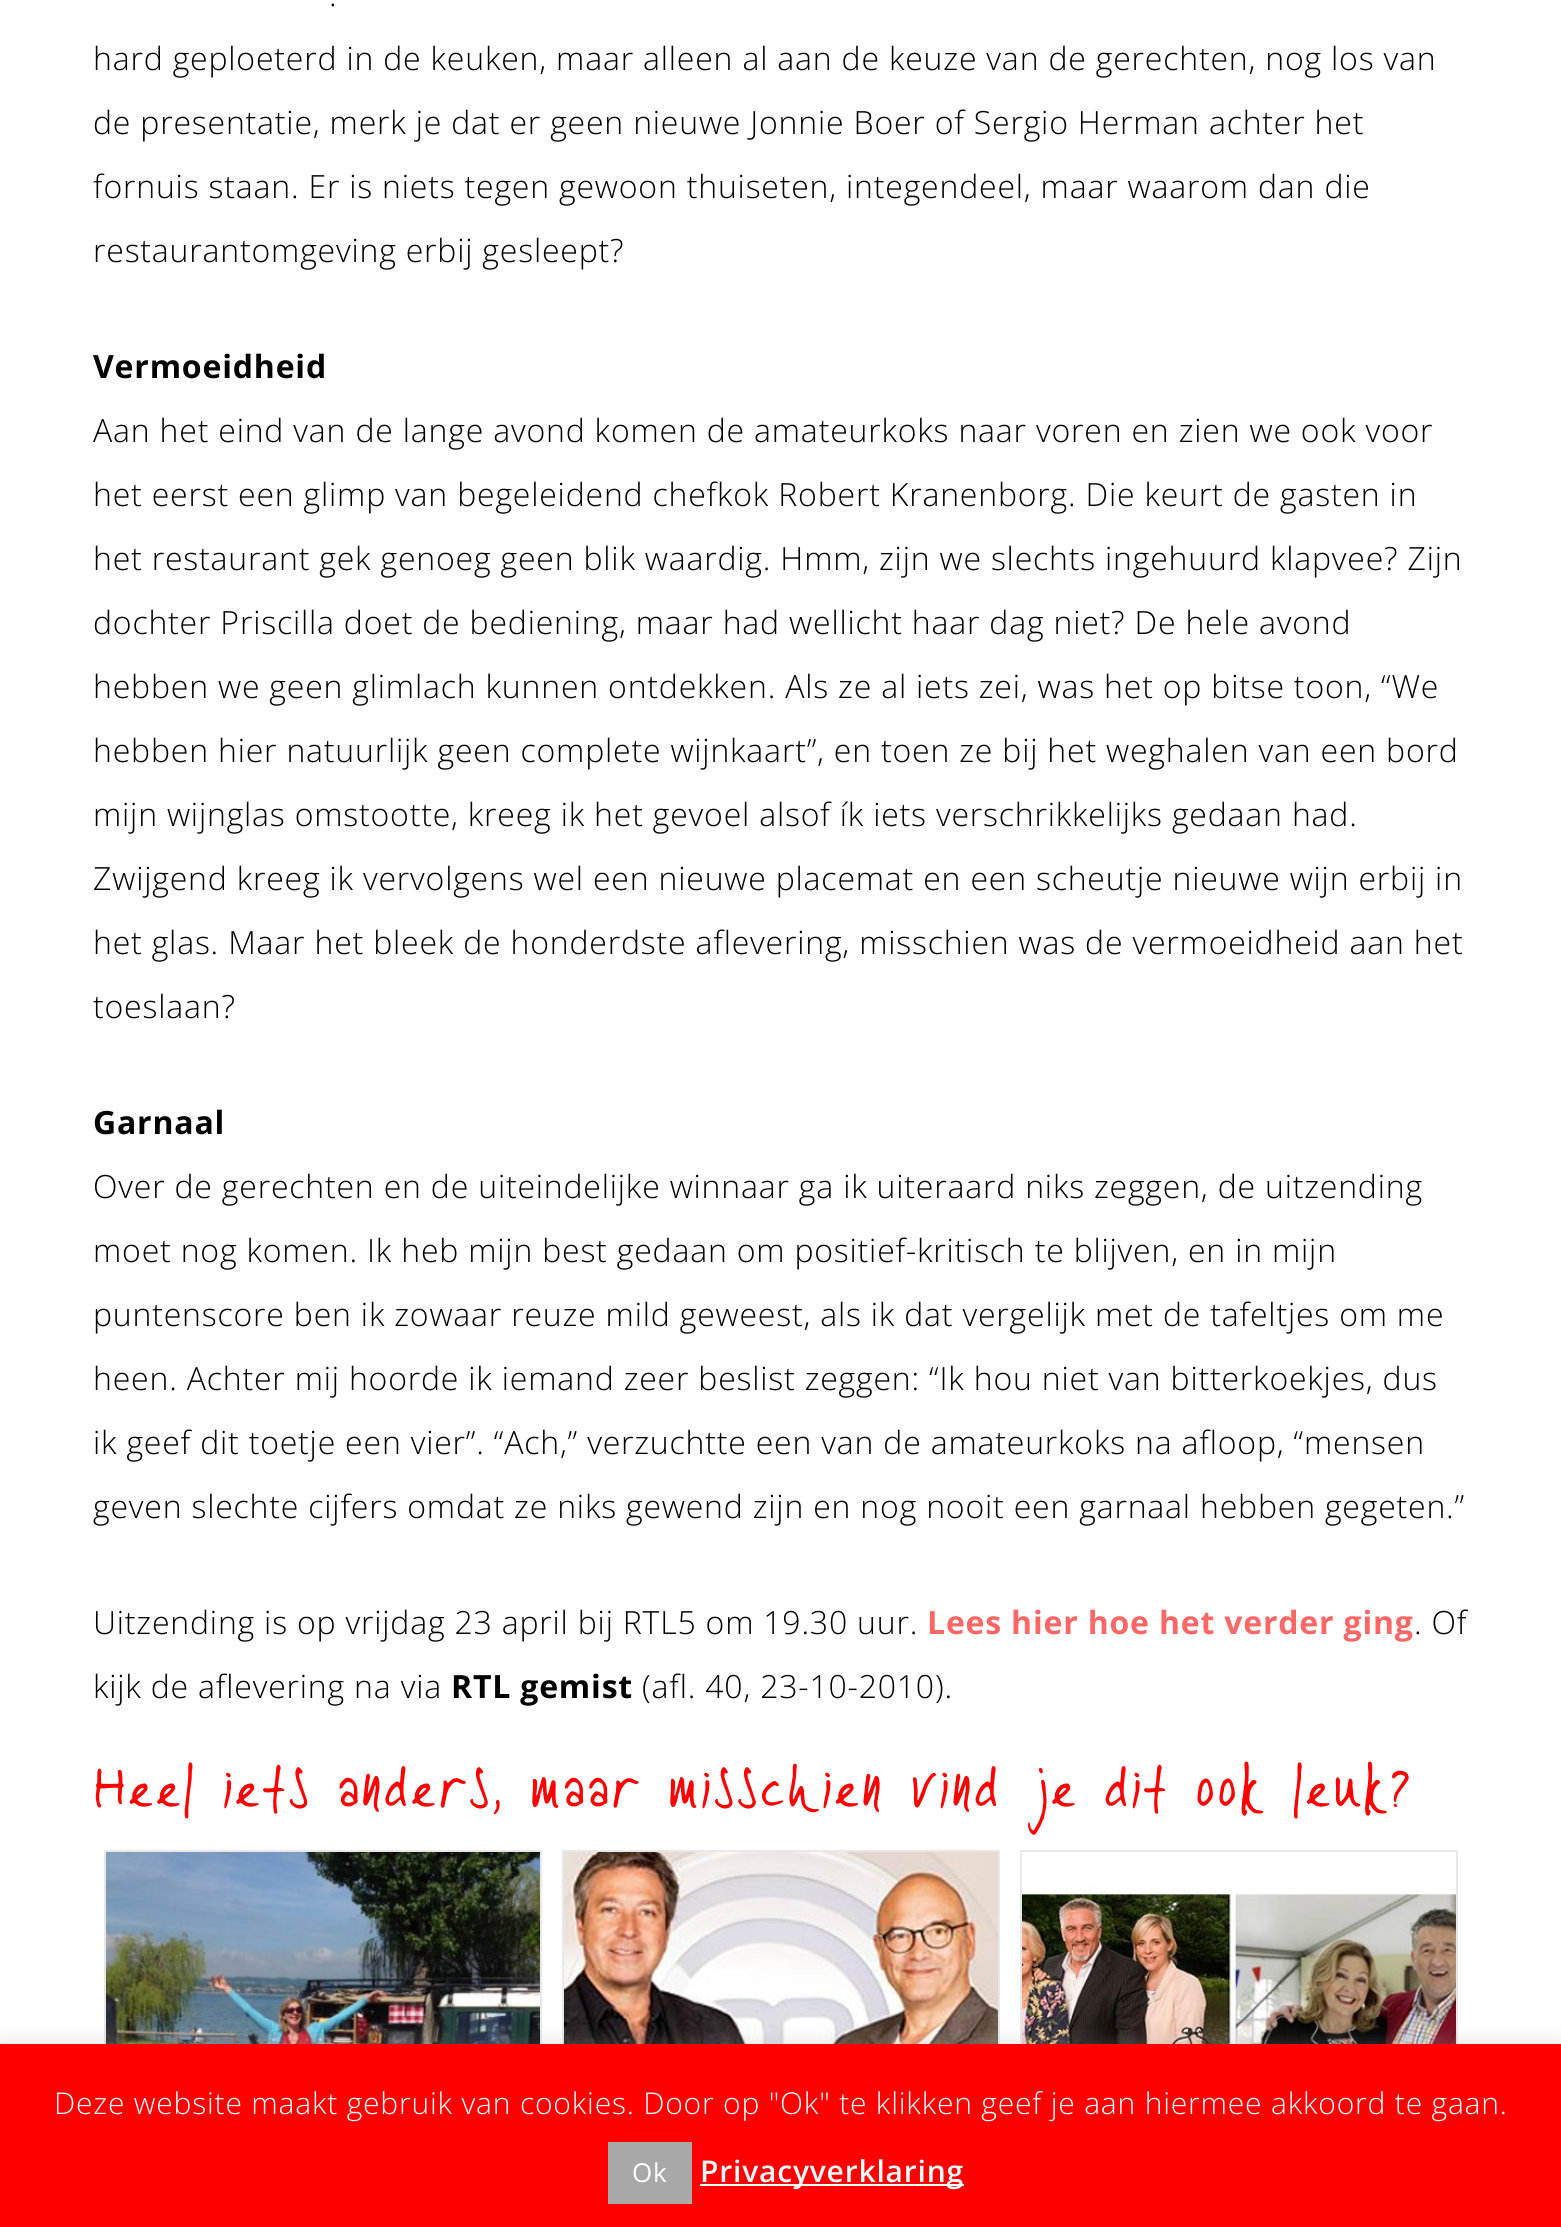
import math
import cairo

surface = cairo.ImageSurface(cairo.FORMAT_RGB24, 1561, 2227)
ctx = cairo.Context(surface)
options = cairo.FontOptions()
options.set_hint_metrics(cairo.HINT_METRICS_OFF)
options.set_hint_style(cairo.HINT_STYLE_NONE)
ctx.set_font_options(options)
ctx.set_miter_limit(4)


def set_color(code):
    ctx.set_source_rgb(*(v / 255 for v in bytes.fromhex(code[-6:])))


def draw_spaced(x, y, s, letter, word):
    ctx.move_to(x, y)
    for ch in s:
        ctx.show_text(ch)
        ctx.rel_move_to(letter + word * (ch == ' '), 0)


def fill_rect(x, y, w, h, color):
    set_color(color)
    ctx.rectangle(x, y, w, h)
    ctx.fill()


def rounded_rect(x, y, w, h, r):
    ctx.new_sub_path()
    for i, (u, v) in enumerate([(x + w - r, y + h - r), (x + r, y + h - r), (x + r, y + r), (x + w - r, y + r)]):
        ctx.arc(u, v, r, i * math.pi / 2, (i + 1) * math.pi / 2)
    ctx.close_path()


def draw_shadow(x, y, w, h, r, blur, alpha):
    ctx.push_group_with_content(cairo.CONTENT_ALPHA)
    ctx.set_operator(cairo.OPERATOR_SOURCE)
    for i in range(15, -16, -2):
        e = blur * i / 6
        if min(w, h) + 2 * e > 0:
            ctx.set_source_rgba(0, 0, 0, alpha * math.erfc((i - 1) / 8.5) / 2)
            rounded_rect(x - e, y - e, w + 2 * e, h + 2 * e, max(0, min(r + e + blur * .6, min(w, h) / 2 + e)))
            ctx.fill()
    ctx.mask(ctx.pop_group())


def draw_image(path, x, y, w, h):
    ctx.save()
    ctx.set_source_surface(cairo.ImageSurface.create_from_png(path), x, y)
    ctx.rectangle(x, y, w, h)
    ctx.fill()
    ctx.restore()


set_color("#ffffff")
ctx.paint()
ctx.select_font_face("Open Sans Light")
ctx.set_font_size(32)
set_color("#000000")
draw_spaced(329, 6, ".", 0.8, 0)
draw_spaced(93, 70, "hard geploeterd in de keuken, maar alleen al aan de keuze van de gerechten, nog los van", 0.8, 0)
draw_spaced(93, 134, "de presentatie, merk je dat er geen nieuwe Jonnie Boer of Sergio Herman achter het", 0.8, 0)
draw_spaced(93, 198, "fornuis staan. Er is niets tegen gewoon thuiseten, integendeel, maar waarom dan die", 0.8, 0)
draw_spaced(93, 262, "restaurantomgeving erbij gesleept?", 0.8, 0)
ctx.select_font_face("Open Sans", cairo.FONT_SLANT_NORMAL, cairo.FONT_WEIGHT_BOLD)
draw_spaced(93, 378, "Vermoeidheid", 0.8, 0)
ctx.select_font_face("Open Sans Light")
draw_spaced(93, 442, "Aan het eind van de lange avond komen de amateurkoks naar voren en zien we ook voor", 0.8, 0)
draw_spaced(93, 506, "het eerst een glimp van begeleidend chefkok Robert Kranenborg. Die keurt de gasten in", 0.8, 0)
draw_spaced(93, 570, "het restaurant gek genoeg geen blik waardig. Hmm, zijn we slechts ingehuurd klapvee? Zijn", 0.8, 0)
draw_spaced(93, 634, "dochter Priscilla doet de bediening, maar had wellicht haar dag niet? De hele avond", 0.8, 0)
draw_spaced(93, 698, "hebben we geen glimlach kunnen ontdekken. Als ze al iets zei, was het op bitse toon, “We", 0.8, 0)
draw_spaced(93, 762, "hebben hier natuurlijk geen complete wijnkaart”, en toen ze bij het weghalen van een bord", 0.8, 0)
draw_spaced(93, 826, "mijn wijnglas omstootte, kreeg ik het gevoel alsof ík iets verschrikkelijks gedaan had.", 0.8, 0)
draw_spaced(93, 890, "Zwijgend kreeg ik vervolgens wel een nieuwe placemat en een scheutje nieuwe wijn erbij in", 0.8, 0)
draw_spaced(93, 954, "het glas. Maar het bleek de honderdste aflevering, misschien was de vermoeidheid aan het", 0.8, 0)
draw_spaced(93, 1018, "toeslaan?", 0.8, 0)
ctx.select_font_face("Open Sans", cairo.FONT_SLANT_NORMAL, cairo.FONT_WEIGHT_BOLD)
draw_spaced(93, 1134, "Garnaal", 0.8, 0)
ctx.select_font_face("Open Sans Light")
draw_spaced(93, 1198, "Over de gerechten en de uiteindelijke winnaar ga ik uiteraard niks zeggen, de uitzending", 0.8, 0)
draw_spaced(93, 1262, "moet nog komen. Ik heb mijn best gedaan om positief-kritisch te blijven, en in mijn", 0.8, 0)
draw_spaced(93, 1326, "puntenscore ben ik zowaar reuze mild geweest, als ik dat vergelijk met de tafeltjes om me", 0.8, 0)
draw_spaced(93, 1390, "heen. Achter mij hoorde ik iemand zeer beslist zeggen: “Ik hou niet van bitterkoekjes, dus", 0.8, 0)
draw_spaced(93, 1454, "ik geef dit toetje een vier”. “Ach,” verzuchtte een van de amateurkoks na afloop, “mensen", 0.8, 0)
draw_spaced(93, 1518, "geven slechte cijfers omdat ze niks gewend zijn en nog nooit een garnaal hebben gegeten.”", 0.8, 0)
draw_spaced(93, 1634, "Uitzending is op vrijdag 23 april bij RTL5 om 19.30 uur.", 0.8, 0)
ctx.select_font_face("Open Sans", cairo.FONT_SLANT_NORMAL, cairo.FONT_WEIGHT_BOLD)
set_color("#ff6666")
draw_spaced(927, 1634, "Lees hier hoe het verder ging", 0.8, 0)
ctx.select_font_face("Open Sans Light")
set_color("#000000")
draw_spaced(1414, 1634, ". Of", 0.8, 0)
draw_spaced(93, 1698, "kijk de aflevering na via", 0.8, 0)
ctx.select_font_face("Open Sans", cairo.FONT_SLANT_NORMAL, cairo.FONT_WEIGHT_BOLD)
draw_spaced(451, 1698, "RTL gemist", 0.8, 0)
ctx.select_font_face("Open Sans Light")
draw_spaced(642, 1698, "(afl. 40, 23-10-2010).", 0.8, 0)
ctx.select_font_face("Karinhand")
ctx.set_font_size(48)
set_color("#ff0000")
draw_spaced(93, 1806, "Heel iets anders, maar misschien vind je dit ook leuk?", 2, 0)
ctx.rectangle(105, 1851, 436, 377)
set_color("#e8e8e8")
ctx.stroke()
draw_image("assets/img1.png", 106, 1852, 434, 192)
ctx.rectangle(563, 1851, 436, 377)
ctx.stroke()
draw_image("assets/img2.png", 564, 1852, 434, 192)
ctx.rectangle(1021, 1851, 436, 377)
ctx.stroke()
draw_image("assets/img3.png", 1022, 1887, 434, 157)
set_color("#acabab")
draw_shadow(0, 2042, 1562, 184, 0, 10, 0.3)
fill_rect(0, 2044, 1561, 183, "#ff0000")
ctx.select_font_face("Open Sans Light")
ctx.set_font_size(30)
set_color("#ffffff")
draw_spaced(54, 2114, "Deze website maakt gebruik van cookies. Door op \"Ok\" te klikken geef je aan hiermee akkoord te gaan.", 0.8, 0)
fill_rect(608, 2142, 84, 62, "#a8a8a8")
ctx.select_font_face("Open Sans")
ctx.set_font_size(26)
set_color("#ffffff")
draw_spaced(632, 2182, "Ok", 0.8, 0)
fill_rect(700, 2184, 264, 2, "#ffffff")
ctx.select_font_face("Open Sans SemiBold")
ctx.set_font_size(30)
draw_spaced(700, 2182, "Privacyverklaring", 0.8, 0)
surface.write_to_png("output.png")
